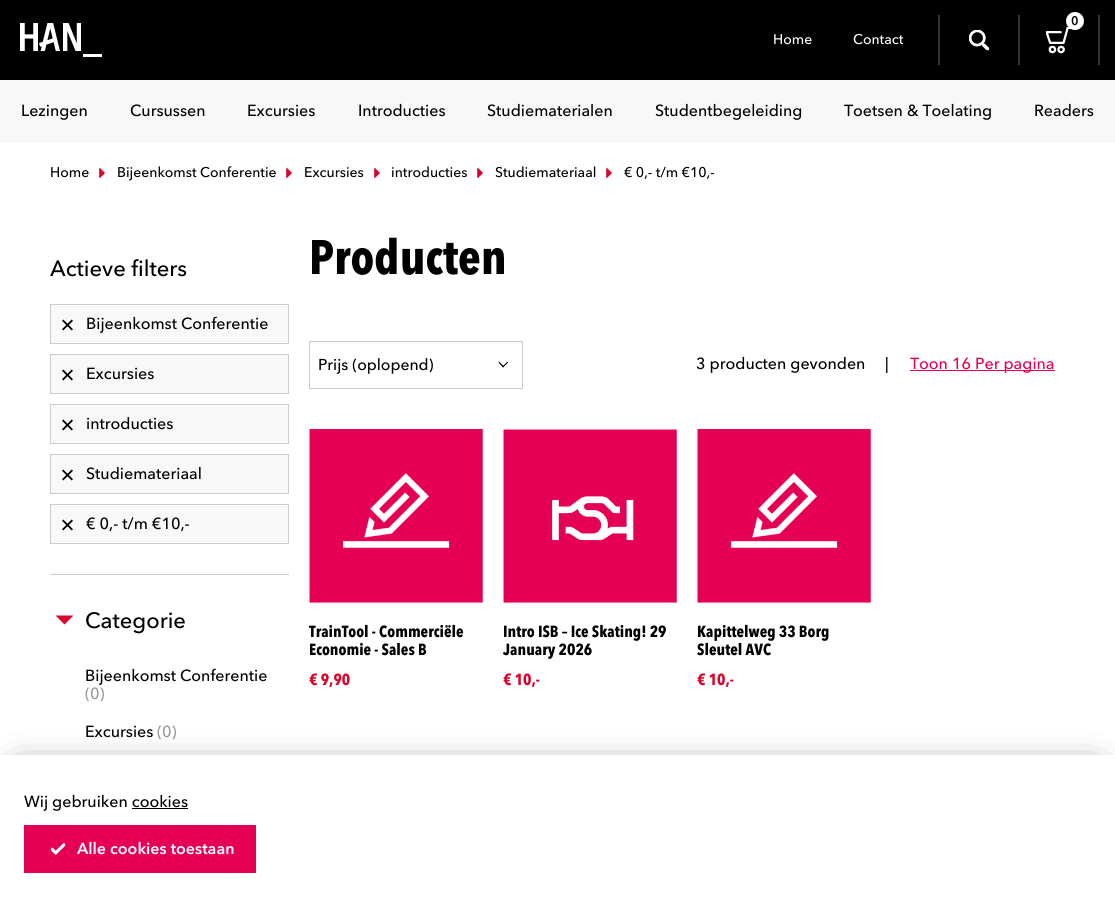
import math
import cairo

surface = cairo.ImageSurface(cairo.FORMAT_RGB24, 1115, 897)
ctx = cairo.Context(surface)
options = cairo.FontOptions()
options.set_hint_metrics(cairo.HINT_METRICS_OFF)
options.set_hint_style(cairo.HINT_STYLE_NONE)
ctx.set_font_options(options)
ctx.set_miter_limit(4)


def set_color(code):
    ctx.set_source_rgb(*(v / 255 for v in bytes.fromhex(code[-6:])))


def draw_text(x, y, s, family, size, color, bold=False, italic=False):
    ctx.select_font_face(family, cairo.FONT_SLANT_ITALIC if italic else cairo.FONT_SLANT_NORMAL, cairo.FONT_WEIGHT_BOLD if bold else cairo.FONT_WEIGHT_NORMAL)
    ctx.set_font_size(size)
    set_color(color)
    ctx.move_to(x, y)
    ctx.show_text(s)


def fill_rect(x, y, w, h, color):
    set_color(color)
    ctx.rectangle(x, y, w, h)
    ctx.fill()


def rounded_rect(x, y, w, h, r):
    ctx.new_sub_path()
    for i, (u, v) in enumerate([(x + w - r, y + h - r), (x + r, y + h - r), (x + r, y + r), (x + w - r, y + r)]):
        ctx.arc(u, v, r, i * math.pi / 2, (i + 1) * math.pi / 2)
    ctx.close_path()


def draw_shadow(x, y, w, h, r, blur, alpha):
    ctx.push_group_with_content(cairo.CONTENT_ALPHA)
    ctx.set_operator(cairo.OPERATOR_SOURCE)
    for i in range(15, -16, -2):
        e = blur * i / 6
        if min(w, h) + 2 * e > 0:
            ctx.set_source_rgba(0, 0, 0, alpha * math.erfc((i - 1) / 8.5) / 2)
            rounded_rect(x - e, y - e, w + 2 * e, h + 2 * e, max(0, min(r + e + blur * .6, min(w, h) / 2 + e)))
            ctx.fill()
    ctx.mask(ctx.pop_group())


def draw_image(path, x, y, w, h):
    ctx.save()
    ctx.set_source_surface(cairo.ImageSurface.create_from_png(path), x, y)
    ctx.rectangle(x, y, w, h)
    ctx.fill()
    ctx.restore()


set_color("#ffffff")
ctx.paint()
fill_rect(0, 0, 1115, 80, "#000000")
draw_image("assets/img1.png", 20, 23, 82, 34)
fill_rect(938, 15, 2, 50, "#333333")
fill_rect(1018, 15, 2, 50, "#333333")
draw_image("assets/img2.png", 969, 30, 21, 21)
fill_rect(1098, 15, 2, 50, "#333333")
draw_image("assets/img3.png", 1046, 27, 25, 27)
set_color("#ffffff")
ctx.arc(1075, 21, 9, 0, 2 * math.pi)
ctx.fill()
draw_text(1071, 25, "0", "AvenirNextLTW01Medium", 12, "#000000", bold=True)
draw_text(773, 44, "Home", "AvenirNextLTW01Medium Medium", 14, "#ffffff")
draw_text(853, 44, "Contact", "AvenirNextLTW01Medium Medium", 14, "#ffffff")
fill_rect(0, 80, 1115, 63, "#f8f8f8")
draw_text(21, 116, "Lezingen", "AvenirNextLTW01Medium Medium", 16, "#000000")
draw_text(130, 116, "Cursussen", "AvenirNextLTW01Medium Medium", 16, "#000000")
draw_text(247, 116, "Excursies", "AvenirNextLTW01Medium Medium", 16, "#000000")
draw_text(358, 116, "Introducties", "AvenirNextLTW01Medium Medium", 16, "#000000")
draw_text(487, 116, "Studiematerialen", "AvenirNextLTW01Medium Medium", 16, "#000000")
draw_text(655, 116, "Studentbegeleiding", "AvenirNextLTW01Medium Medium", 16, "#000000")
draw_text(844, 116, "Toetsen & Toelating", "AvenirNextLTW01Medium Medium", 16, "#000000")
draw_text(1034, 116, "Readers", "AvenirNextLTW01Medium Medium", 16, "#000000")
draw_text(50, 177, "Home", "AvenirNextLTW01Medium Medium", 14, "#000000")
draw_image("assets/img4.png", 99, 168, 6, 10)
draw_text(117, 177, "Bijeenkomst Conferentie", "AvenirNextLTW01Medium Medium", 14, "#000000")
draw_image("assets/img4.png", 286, 168, 6, 10)
draw_text(304, 177, "Excursies", "AvenirNextLTW01Medium Medium", 14, "#000000")
draw_image("assets/img4.png", 374, 168, 6, 10)
draw_text(391, 177, "introducties", "AvenirNextLTW01Medium Medium", 14, "#000000")
draw_image("assets/img4.png", 477, 168, 6, 10)
draw_text(495, 177, "Studiemateriaal", "AvenirNextLTW01Medium Medium", 14, "#000000")
draw_image("assets/img4.png", 606, 168, 6, 10)
draw_text(624, 177, "€ 0,- t/m €10,-", "AvenirNextLTW01Medium Medium", 14, "#000000")
draw_text(50, 276, "Actieve filters", "AvenirNextLTW01Medium Medium", 22, "#000000")
set_color("#f8f8f8")
ctx.rectangle(50.5, 304.5, 238, 39)
ctx.fill_preserve()
set_color("#cccccc")
ctx.set_line_width(1)
ctx.stroke()
draw_image("assets/img5.png", 62, 319, 11, 12)
draw_text(86, 329, "Bijeenkomst Conferentie", "AvenirNextLTW01Medium Medium", 16, "#000000")
set_color("#f8f8f8")
ctx.rectangle(50.5, 354.5, 238, 39)
ctx.fill_preserve()
set_color("#cccccc")
ctx.stroke()
draw_image("assets/img5.png", 62, 369, 11, 12)
draw_text(86, 379, "Excursies", "AvenirNextLTW01Medium Medium", 16, "#000000")
set_color("#f8f8f8")
ctx.rectangle(50.5, 404.5, 238, 39)
ctx.fill_preserve()
set_color("#cccccc")
ctx.stroke()
draw_image("assets/img5.png", 62, 419, 11, 12)
draw_text(86, 429, "introducties", "AvenirNextLTW01Medium Medium", 16, "#000000")
set_color("#f8f8f8")
ctx.rectangle(50.5, 454.5, 238, 39)
ctx.fill_preserve()
set_color("#cccccc")
ctx.stroke()
draw_image("assets/img5.png", 62, 469, 11, 12)
draw_text(86, 479, "Studiemateriaal", "AvenirNextLTW01Medium Medium", 16, "#000000")
set_color("#f8f8f8")
ctx.rectangle(50.5, 504.5, 238, 39)
ctx.fill_preserve()
set_color("#cccccc")
ctx.stroke()
draw_image("assets/img5.png", 62, 519, 11, 12)
draw_text(86, 529, "€ 0,- t/m €10,-", "AvenirNextLTW01Medium Medium", 16, "#000000")
fill_rect(50, 574, 239, 1, "#cccccc")
draw_image("assets/img6.png", 55, 615, 18, 10)
draw_text(85, 628, "Categorie", "AvenirNextLTW01Medium Medium", 22, "#000000")
draw_text(85, 681, "Bijeenkomst Conferentie", "AvenirNextLTW01Medium Medium", 16, "#000000")
draw_text(85, 699, "(0)", "AvenirNextLTW01Medium Medium", 16, "#999999")
draw_text(85, 737, "Excursies", "AvenirNextLTW01Medium Medium", 16, "#000000")
draw_text(157, 737, "(0)", "AvenirNextLTW01Medium Medium", 16, "#999999")
draw_text(309, 274, "Producten", "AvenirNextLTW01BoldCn", 48, "#000000", bold=True)
ctx.rectangle(309.5, 341.5, 213, 47)
set_color("#cccccc")
ctx.stroke()
draw_text(318, 370, "Prijs (oplopend)", "AvenirNextLTW01Medium Medium", 15.75, "#000000")
ctx.new_path()
ctx.move_to(502.5, 366.5)
ctx.line_to(507.5, 361.5)
ctx.line_to(508, 362.5)
ctx.line_to(503, 367.5)
ctx.close_path()
ctx.fill()
ctx.new_path()
ctx.move_to(498.5, 362.5)
ctx.line_to(499, 361.5)
ctx.line_to(504, 366.5)
ctx.line_to(503, 367.5)
ctx.close_path()
ctx.fill()
draw_text(696, 369, "3 producten gevonden", "AvenirNextLTW01Medium Medium", 16, "#000000")
draw_text(885, 369, "|", "AvenirNextLTW01Medium Medium", 16, "#000000")
fill_rect(910, 370, 145, 1, "#e50056")
draw_text(910, 369, "Toon 16 Per pagina", "AvenirNextLTW01Medium Medium", 16, "#e50056")
draw_image("assets/img7.png", 309, 429, 174, 174)
draw_text(309, 637, "TrainTool - Commerciële", "AvenirNextLTW01BoldCn", 16, "#000000", bold=True)
draw_text(309, 655, "Economie - Sales B", "AvenirNextLTW01BoldCn", 16, "#000000", bold=True)
draw_text(309, 685, "€ 9,90", "AvenirNextLTW01BoldCn", 16, "#db042c", bold=True)
draw_image("assets/img8.png", 503, 429, 174, 174)
draw_text(503, 637, "Intro ISB – Ice Skating! 29", "AvenirNextLTW01BoldCn", 16, "#000000", bold=True)
draw_text(503, 655, "January 2026", "AvenirNextLTW01BoldCn", 16, "#000000", bold=True)
draw_text(503, 685, "€ 10,-", "AvenirNextLTW01BoldCn", 16, "#db042c", bold=True)
draw_image("assets/img7.png", 697, 429, 174, 174)
draw_text(697, 637, "Kapittelweg 33 Borg", "AvenirNextLTW01BoldCn", 16, "#000000", bold=True)
draw_text(697, 655, "Sleutel AVC", "AvenirNextLTW01BoldCn", 16, "#000000", bold=True)
draw_text(697, 685, "€ 10,-", "AvenirNextLTW01BoldCn", 16, "#db042c", bold=True)
set_color("#000000")
draw_shadow(20, 780, 1075, 102, 0, 20, 1)
fill_rect(0, 755, 1115, 142, "#ffffff")
draw_text(24, 807, "Wij gebruiken cookies", "AvenirNextLTW01Medium Medium", 16, "#000000")
fill_rect(132, 808, 56, 1, "#000000")
fill_rect(24, 825, 232, 48, "#e50056")
draw_image("assets/img9.png", 51, 843, 15, 12)
draw_text(77, 854, "Alle cookies toestaan", "Avenir Next", 16, "#ffffff", bold=True)
surface.write_to_png("output.png")
